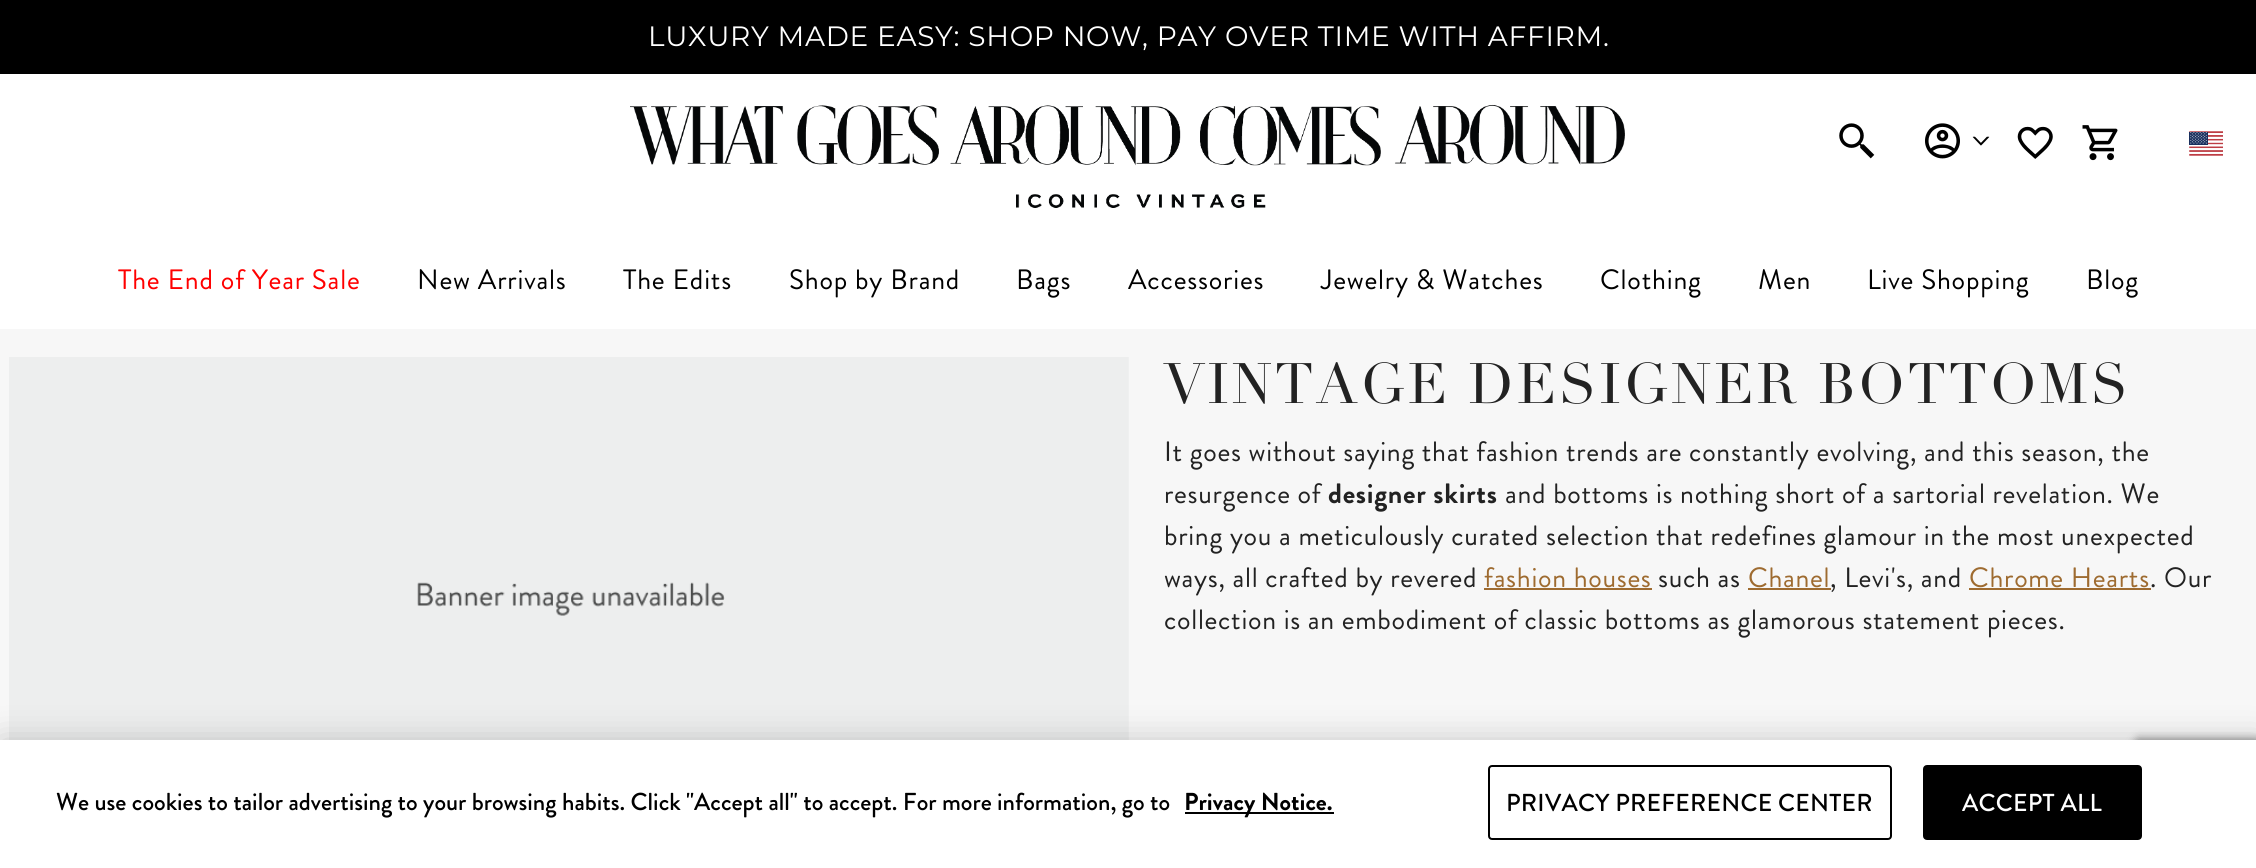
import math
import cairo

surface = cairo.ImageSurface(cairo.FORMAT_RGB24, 2256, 868)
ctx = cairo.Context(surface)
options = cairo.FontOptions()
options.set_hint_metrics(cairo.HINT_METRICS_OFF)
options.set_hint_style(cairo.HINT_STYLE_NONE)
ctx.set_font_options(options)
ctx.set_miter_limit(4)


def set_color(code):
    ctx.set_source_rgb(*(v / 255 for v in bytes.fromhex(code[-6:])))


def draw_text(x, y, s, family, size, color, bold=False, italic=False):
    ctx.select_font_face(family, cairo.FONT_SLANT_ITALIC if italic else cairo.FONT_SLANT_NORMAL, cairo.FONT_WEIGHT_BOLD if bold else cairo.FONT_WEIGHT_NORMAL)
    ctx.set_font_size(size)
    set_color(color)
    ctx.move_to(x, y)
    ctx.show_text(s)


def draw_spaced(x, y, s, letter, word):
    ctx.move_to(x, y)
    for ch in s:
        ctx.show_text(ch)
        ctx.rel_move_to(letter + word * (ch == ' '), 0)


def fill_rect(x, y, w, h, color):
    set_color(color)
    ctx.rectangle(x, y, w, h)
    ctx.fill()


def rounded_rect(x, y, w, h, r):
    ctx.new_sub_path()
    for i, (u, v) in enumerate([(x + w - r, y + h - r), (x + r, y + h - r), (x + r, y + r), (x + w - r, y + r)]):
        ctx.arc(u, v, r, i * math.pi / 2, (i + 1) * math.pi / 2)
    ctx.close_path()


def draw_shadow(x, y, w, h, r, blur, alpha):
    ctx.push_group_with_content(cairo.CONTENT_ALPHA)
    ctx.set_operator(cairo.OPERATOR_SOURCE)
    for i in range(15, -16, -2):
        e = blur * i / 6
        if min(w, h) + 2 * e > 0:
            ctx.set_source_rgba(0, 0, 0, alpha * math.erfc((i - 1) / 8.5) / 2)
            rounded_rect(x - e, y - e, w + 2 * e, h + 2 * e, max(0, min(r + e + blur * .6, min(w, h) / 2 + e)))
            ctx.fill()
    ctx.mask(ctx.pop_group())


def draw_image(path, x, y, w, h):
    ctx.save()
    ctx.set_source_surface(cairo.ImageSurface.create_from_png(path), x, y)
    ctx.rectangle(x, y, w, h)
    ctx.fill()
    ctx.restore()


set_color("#ffffff")
ctx.paint()
fill_rect(0, 0, 2256, 74, "#000000")
ctx.select_font_face("Montserrat Thin")
ctx.set_font_size(28)
set_color("#ffffff")
draw_spaced(648, 46, "LUXURY MADE EASY: SHOP NOW, PAY OVER TIME WITH AFFIRM.", 0.7, 0)
draw_image("assets/img1.png", 630, 104, 995, 62)
draw_image("assets/img2.png", 1016, 194, 250, 14)
draw_image("assets/img3.png", 1839, 123, 36, 36)
draw_image("assets/img4.png", 1925, 123, 35, 36)
draw_image("assets/img5.png", 1972, 136, 18, 10)
draw_image("assets/img6.png", 2017, 126, 36, 33)
draw_image("assets/img7.png", 2082, 125, 36, 36)
draw_image("assets/img8.png", 2189, 131, 34, 25)
ctx.select_font_face("Brandon Grotesque")
set_color("#ff0000")
draw_spaced(118, 289, "The End of Year Sale", 0.8, 0)
set_color("#000000")
draw_spaced(417, 289, "New Arrivals", 0.8, 0)
draw_spaced(623, 289, "The Edits", 0.8, 0)
draw_spaced(789, 289, "Shop by Brand", 0.8, 0)
draw_spaced(1016, 289, "Bags", 0.8, 0)
draw_spaced(1128, 289, "Accessories", 0.8, 0)
draw_spaced(1321, 289, "Jewelry & Watches", 0.8, 0)
draw_spaced(1600, 289, "Clothing", 0.8, 0)
draw_spaced(1758, 289, "Men", 0.8, 0)
draw_spaced(1867, 289, "Live Shopping", 0.8, 0)
draw_spaced(2086, 289, "Blog", 0.8, 0)
fill_rect(0, 329, 2256, 411, "#f7f7f7")
draw_image("assets/img9.png", 9, 357, 1120, 383)
ctx.select_font_face("Didot")
ctx.set_font_size(56)
set_color("#222222")
draw_spaced(1164, 403, "VINTAGE DESIGNER BOTTOMS", 2.8, 0)
ctx.select_font_face("Brandon Grotesque")
ctx.set_font_size(28)
draw_spaced(1164, 461, "It goes without saying that fashion trends are constantly evolving, and this season, the", 0.7, 0)
draw_spaced(1164, 503, "resurgence of", 0.7, 0)
ctx.select_font_face("Brandon Grotesque", cairo.FONT_SLANT_NORMAL, cairo.FONT_WEIGHT_BOLD)
draw_spaced(1328, 503, "designer skirts", 0.7, 0)
ctx.select_font_face("Brandon Grotesque")
draw_spaced(1505, 503, "and bottoms is nothing short of a sartorial revelation. We", 0.7, 0)
draw_spaced(1164, 545, "bring you a meticulously curated selection that redefines glamour in the most unexpected", 0.7, 0)
draw_spaced(1164, 587, "ways, all crafted by revered", 0.7, 0)
set_color("#9e6b30")
draw_spaced(1484, 587, "fashion houses", 0.7, 0)
fill_rect(1484, 588, 168, 2, "#9e6b30")
set_color("#222222")
draw_spaced(1658, 587, "such as", 0.7, 0)
set_color("#9e6b30")
draw_spaced(1748, 587, "Chanel", 0.7, 0)
fill_rect(1748, 588, 83, 2, "#9e6b30")
set_color("#222222")
draw_spaced(1830, 587, ", Levi's, and", 0.7, 0)
set_color("#9e6b30")
draw_spaced(1969, 587, "Chrome Hearts", 0.7, 0)
fill_rect(1969, 588, 182, 2, "#9e6b30")
set_color("#222222")
draw_spaced(2150, 587, ". Our", 0.7, 0)
draw_spaced(1164, 629, "collection is an embodiment of classic bottoms as glamorous statement pieces.", 0.7, 0)
set_color("#000000")
draw_shadow(0, 740, 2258, 128, 0, 16, 0.2)
set_color("#808080")
draw_shadow(2135, 739, 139, 105, 4, 4.5, 1)
fill_rect(0, 740, 2256, 128, "#ffffff")
draw_text(56, 810, "We use cookies to tailor advertising to your browsing habits. Click \"Accept all\" to accept. For more information, go to", "Brandon Grotesque Medium", 24.5, "#000000")
fill_rect(1185, 812, 149, 2, "#000000")
draw_text(1184, 810, "Privacy Notice.", "Brandon Grotesque", 24.5, "#000000", bold=True)
rounded_rect(1489, 766, 402, 73, 3)
ctx.stroke()
ctx.select_font_face("Brandon Grotesque Medium")
draw_spaced(1506, 811, "PRIVACY PREFERENCE CENTER", 0.25, 0)
rounded_rect(1924, 766, 217, 73, 3)
ctx.fill_preserve()
ctx.stroke()
set_color("#ffffff")
draw_spaced(1962, 811, "ACCEPT ALL", 0.25, 0)
surface.write_to_png("output.png")
